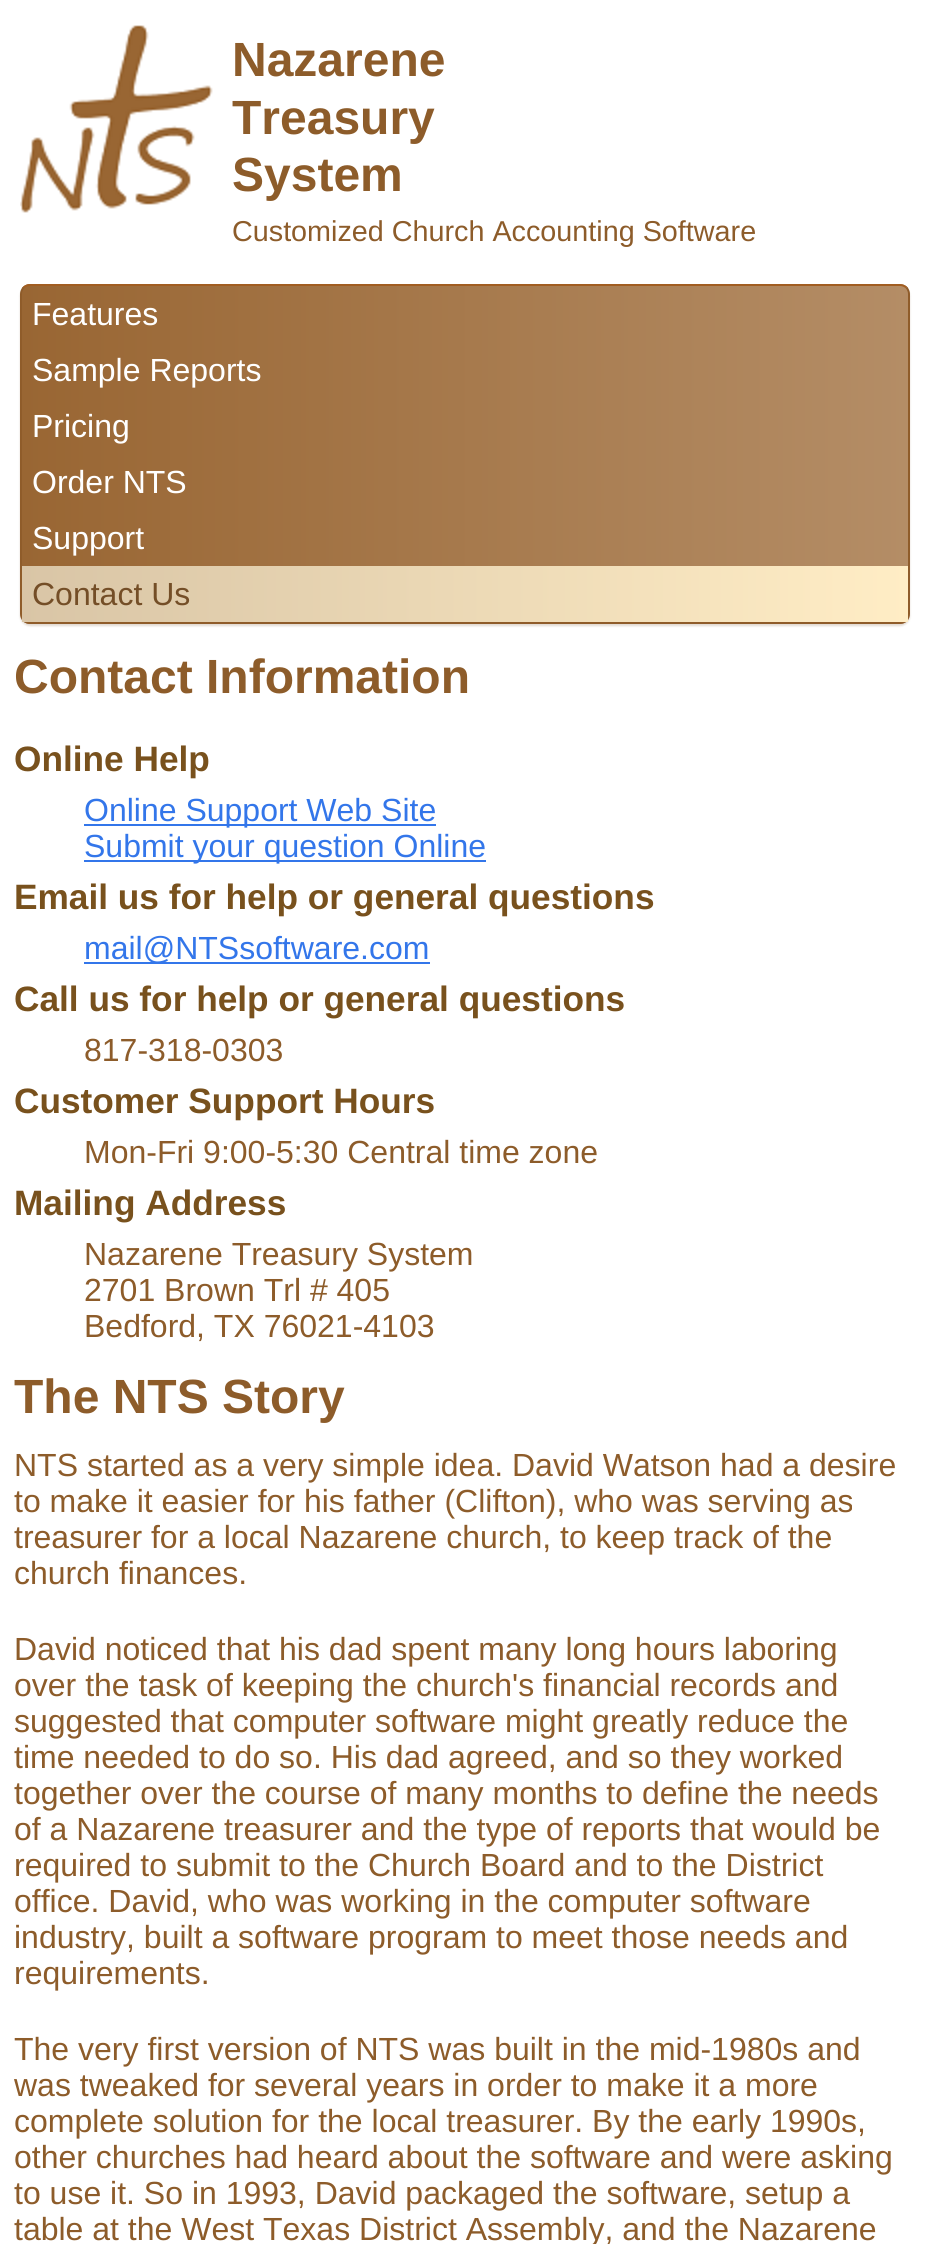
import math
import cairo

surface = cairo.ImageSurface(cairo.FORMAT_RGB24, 931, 2244)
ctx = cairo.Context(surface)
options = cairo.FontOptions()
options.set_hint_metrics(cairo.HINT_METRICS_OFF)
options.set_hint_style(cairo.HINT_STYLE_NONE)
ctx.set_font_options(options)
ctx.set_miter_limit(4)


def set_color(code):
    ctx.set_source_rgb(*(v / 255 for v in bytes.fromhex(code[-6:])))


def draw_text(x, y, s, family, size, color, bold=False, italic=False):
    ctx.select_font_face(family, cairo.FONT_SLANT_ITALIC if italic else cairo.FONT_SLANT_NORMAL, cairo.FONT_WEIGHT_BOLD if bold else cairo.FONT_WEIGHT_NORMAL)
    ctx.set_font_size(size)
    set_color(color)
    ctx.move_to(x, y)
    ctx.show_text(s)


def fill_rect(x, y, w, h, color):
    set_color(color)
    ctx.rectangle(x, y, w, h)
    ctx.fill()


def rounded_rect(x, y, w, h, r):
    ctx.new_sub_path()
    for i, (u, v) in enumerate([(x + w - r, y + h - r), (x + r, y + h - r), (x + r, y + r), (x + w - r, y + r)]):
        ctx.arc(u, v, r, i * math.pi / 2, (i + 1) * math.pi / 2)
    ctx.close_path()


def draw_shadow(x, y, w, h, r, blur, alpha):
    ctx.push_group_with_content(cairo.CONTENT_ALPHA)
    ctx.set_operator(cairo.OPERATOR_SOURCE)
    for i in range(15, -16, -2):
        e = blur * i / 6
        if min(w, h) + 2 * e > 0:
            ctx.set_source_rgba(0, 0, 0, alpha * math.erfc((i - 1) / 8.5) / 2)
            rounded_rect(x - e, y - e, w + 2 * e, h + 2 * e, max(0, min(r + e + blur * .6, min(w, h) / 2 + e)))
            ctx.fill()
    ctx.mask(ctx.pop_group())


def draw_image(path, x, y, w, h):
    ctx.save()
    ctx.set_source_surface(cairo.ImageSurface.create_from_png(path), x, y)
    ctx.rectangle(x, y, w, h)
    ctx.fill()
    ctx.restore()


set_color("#ffffff")
ctx.paint()
draw_image("assets/img1.png", 20, 25, 193, 188)
draw_text(232, 76, "Nazarene", "Liberation Sans", 48, "#8d5c2a", bold=True)
draw_text(232, 134, "Treasury", "Liberation Sans", 48, "#8d5c2a", bold=True)
draw_text(232, 191, "System", "Liberation Sans", 48, "#8d5c2a", bold=True)
draw_text(232, 241, "Customized Church Accounting Software", "Liberation Sans", 28.75, "#8d5c2a")
set_color("#6a4520")
draw_shadow(20, 286, 890, 340, 10, 1, 0.2)
ctx.save()
rounded_rect(20, 284, 890, 340, 10)
ctx.clip()
gradient = cairo.LinearGradient(908, 454, 22, 454)
gradient.add_color_stop_rgba(0, 0.706, 0.553, 0.4, 1)
gradient.add_color_stop_rgba(1, 0.6, 0.4, 0.2, 1)
ctx.set_source(gradient)
ctx.rectangle(22, 284, 886, 340)
ctx.fill()
ctx.restore()
ctx.new_path()
ctx.move_to(23.5, 287.5)
ctx.curve_to(25.5, 286, 27.5, 285, 30, 285)
ctx.line_to(900, 285)
ctx.curve_to(902.5, 285, 904.5, 286, 906.5, 287.5)
set_color("#a15d21")
ctx.stroke()
ctx.new_path()
ctx.move_to(906.5, 287.5)
ctx.curve_to(908, 289.5, 909, 291.5, 909, 294)
ctx.line_to(909, 614)
ctx.curve_to(909, 616.5, 908, 618.5, 906.5, 620.5)
ctx.curve_to(904.5, 622, 902.5, 623, 900, 623)
ctx.line_to(30, 623)
ctx.curve_to(27.5, 623, 25.5, 622, 23.5, 620.5)
ctx.curve_to(22, 618.5, 21, 616.5, 21, 614)
ctx.line_to(21, 294)
ctx.curve_to(21, 291.5, 22, 289.5, 23.5, 287.5)
set_color("#8f5c2a")
ctx.stroke()
draw_text(32, 325, "Features", "Liberation Sans", 32, "#ffffff")
draw_text(32, 381, "Sample Reports", "Liberation Sans", 32, "#ffffff")
draw_text(32, 437, "Pricing", "Liberation Sans", 32, "#ffffff")
draw_text(32, 493, "Order NTS", "Liberation Sans", 32, "#ffffff")
draw_text(32, 549, "Support", "Liberation Sans", 32, "#ffffff")
gradient = cairo.LinearGradient(908, 594, 22, 594)
gradient.add_color_stop_rgba(0, 1, 0.929, 0.773, 1)
gradient.add_color_stop_rgba(1, 0.851, 0.773, 0.651, 1)
ctx.set_source(gradient)
ctx.rectangle(22, 566, 886, 56)
ctx.fill()
draw_text(32, 605, "Contact Us", "Liberation Sans", 32, "#744e27")
draw_text(14, 693, "Contact Information", "Liberation Sans", 48, "#8d5c2a", bold=True)
draw_text(14, 771, "Online Help", "Liberation Sans", 35.25, "#78511d", bold=True)
fill_rect(84, 824, 352, 2, "#3376ea")
draw_text(84, 821, "Online Support Web Site", "Liberation Sans", 32, "#3376ea")
fill_rect(84, 860, 402, 2, "#3376ea")
draw_text(84, 857, "Submit your question Online", "Liberation Sans", 32, "#3376ea")
draw_text(14, 909, "Email us for help or general questions", "Liberation Sans", 35.25, "#78511d", bold=True)
fill_rect(84, 962, 346, 2, "#3376ea")
draw_text(84, 959, "mail@NTSsoftware.com", "Liberation Sans", 32, "#3376ea")
draw_text(14, 1011, "Call us for help or general questions", "Liberation Sans", 35.25, "#78511d", bold=True)
draw_text(84, 1061, "817-318-0303", "Liberation Sans", 32, "#8d5c2a")
draw_text(14, 1113, "Customer Support Hours", "Liberation Sans", 35.25, "#78511d", bold=True)
draw_text(84, 1163, "Mon-Fri 9:00-5:30 Central time zone", "Liberation Sans", 32, "#8d5c2a")
draw_text(14, 1215, "Mailing Address", "Liberation Sans", 35.25, "#78511d", bold=True)
draw_text(84, 1265, "Nazarene Treasury System", "Liberation Sans", 32, "#8d5c2a")
draw_text(84, 1301, "2701 Brown Trl # 405", "Liberation Sans", 32, "#8d5c2a")
draw_text(84, 1337, "Bedford, TX 76021-4103", "Liberation Sans", 32, "#8d5c2a")
draw_text(14, 1413, "The NTS Story", "Liberation Sans", 48, "#8d5c2a", bold=True)
draw_text(14, 1476, "NTS started as a very simple idea. David Watson had a desire", "Liberation Sans", 32, "#8d5c2a")
draw_text(14, 1512, "to make it easier for his father (Clifton), who was serving as", "Liberation Sans", 32, "#8d5c2a")
draw_text(14, 1548, "treasurer for a local Nazarene church, to keep track of the", "Liberation Sans", 32, "#8d5c2a")
draw_text(14, 1584, "church finances.", "Liberation Sans", 32, "#8d5c2a")
draw_text(14, 1660, "David noticed that his dad spent many long hours laboring", "Liberation Sans", 32, "#8d5c2a")
draw_text(14, 1696, "over the task of keeping the church's financial records and", "Liberation Sans", 32, "#8d5c2a")
draw_text(14, 1732, "suggested that computer software might greatly reduce the", "Liberation Sans", 32, "#8d5c2a")
draw_text(14, 1768, "time needed to do so. His dad agreed, and so they worked", "Liberation Sans", 32, "#8d5c2a")
draw_text(14, 1804, "together over the course of many months to define the needs", "Liberation Sans", 32, "#8d5c2a")
draw_text(14, 1840, "of a Nazarene treasurer and the type of reports that would be", "Liberation Sans", 32, "#8d5c2a")
draw_text(14, 1876, "required to submit to the Church Board and to the District", "Liberation Sans", 32, "#8d5c2a")
draw_text(14, 1912, "office. David, who was working in the computer software", "Liberation Sans", 32, "#8d5c2a")
draw_text(14, 1948, "industry, built a software program to meet those needs and", "Liberation Sans", 32, "#8d5c2a")
draw_text(14, 1984, "requirements.", "Liberation Sans", 32, "#8d5c2a")
draw_text(14, 2060, "The very first version of NTS was built in the mid-1980s and", "Liberation Sans", 32, "#8d5c2a")
draw_text(14, 2096, "was tweaked for several years in order to make it a more", "Liberation Sans", 32, "#8d5c2a")
draw_text(14, 2132, "complete solution for the local treasurer. By the early 1990s,", "Liberation Sans", 32, "#8d5c2a")
draw_text(14, 2168, "other churches had heard about the software and were asking", "Liberation Sans", 32, "#8d5c2a")
draw_text(14, 2204, "to use it. So in 1993, David packaged the software, setup a", "Liberation Sans", 32, "#8d5c2a")
draw_text(14, 2240, "table at the West Texas District Assembly, and the Nazarene", "Liberation Sans", 32, "#8d5c2a")
surface.write_to_png("output.png")
